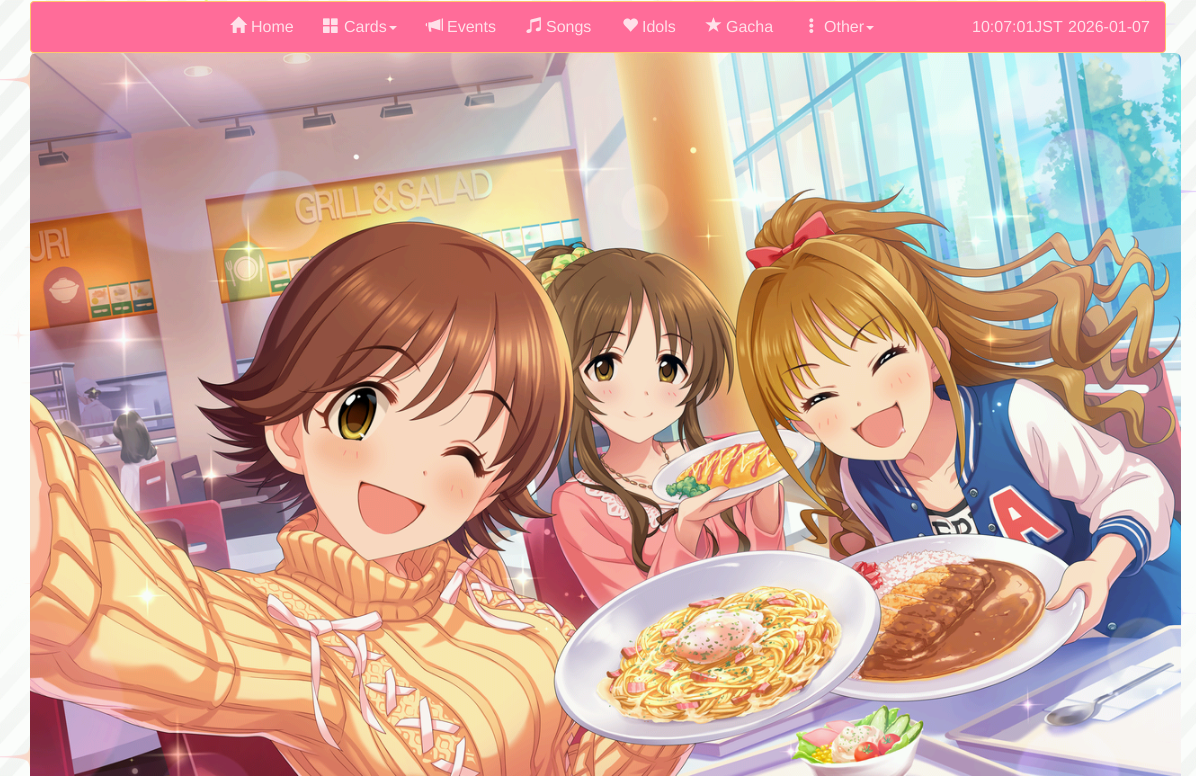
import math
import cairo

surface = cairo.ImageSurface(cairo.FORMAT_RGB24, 1196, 776)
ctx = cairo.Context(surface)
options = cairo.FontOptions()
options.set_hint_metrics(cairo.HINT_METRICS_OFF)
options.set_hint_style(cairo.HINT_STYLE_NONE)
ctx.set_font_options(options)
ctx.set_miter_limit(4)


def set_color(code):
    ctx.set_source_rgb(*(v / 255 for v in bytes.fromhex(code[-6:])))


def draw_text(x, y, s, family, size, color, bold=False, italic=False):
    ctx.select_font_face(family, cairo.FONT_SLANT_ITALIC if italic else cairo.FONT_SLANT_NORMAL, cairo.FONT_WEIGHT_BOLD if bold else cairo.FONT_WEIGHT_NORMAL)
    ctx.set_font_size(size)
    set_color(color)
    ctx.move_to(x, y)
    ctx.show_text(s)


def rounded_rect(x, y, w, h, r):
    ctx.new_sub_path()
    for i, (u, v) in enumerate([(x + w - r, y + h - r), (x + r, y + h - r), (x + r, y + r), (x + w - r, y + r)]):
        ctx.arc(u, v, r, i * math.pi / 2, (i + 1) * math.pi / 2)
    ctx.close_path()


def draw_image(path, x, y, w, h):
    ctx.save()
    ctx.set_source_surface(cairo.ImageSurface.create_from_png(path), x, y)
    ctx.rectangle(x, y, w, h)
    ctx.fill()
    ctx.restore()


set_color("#ffffff")
ctx.paint()
draw_image("assets/img1.png", 0, 0, 1196, 776)
set_color("#ff6c99")
rounded_rect(30.5, 1.5, 1135, 51, 3.5)
ctx.fill_preserve()
set_color("#ffc66c")
ctx.set_line_width(1)
ctx.stroke()
draw_image("assets/img2.png", 230, 16, 18, 17)
draw_text(251, 32, "Home", "Liberation Sans", 16, "#ffe0e9")
draw_image("assets/img3.png", 323, 18, 15, 15)
draw_text(344, 32, "Cards", "Liberation Sans", 16, "#ffe0e9")
ctx.new_path()
ctx.move_to(389, 26)
ctx.line_to(397, 26)
ctx.line_to(393, 30)
ctx.close_path()
ctx.fill()
draw_image("assets/img4.png", 425, 18, 18, 14)
draw_text(447, 32, "Events", "Liberation Sans", 16, "#ffe0e9")
draw_image("assets/img5.png", 526, 17, 15, 16)
draw_text(546, 32, "Songs", "Liberation Sans", 16, "#ffe0e9")
draw_image("assets/img6.png", 623, 18, 15, 14)
draw_text(642, 32, "Idols", "Liberation Sans", 16, "#ffe0e9")
draw_image("assets/img7.png", 705, 17, 17, 15)
draw_text(726, 32, "Gacha", "Liberation Sans", 16, "#ffe0e9")
draw_image("assets/img8.png", 809, 18, 5, 15)
draw_text(824, 32, "Other", "Liberation Sans", 16, "#ffe0e9")
ctx.new_path()
ctx.move_to(866, 26)
ctx.line_to(874, 26)
ctx.line_to(870, 30)
ctx.close_path()
ctx.fill()
draw_text(972, 32, "10:07:01JST", "Liberation Sans", 16, "#ffe0e9")
draw_text(1068, 32, "2026-01-07", "Liberation Sans", 16, "#ffe0e9")
draw_image("assets/img9.png", 30, 53, 1151, 723)
surface.write_to_png("output.png")
